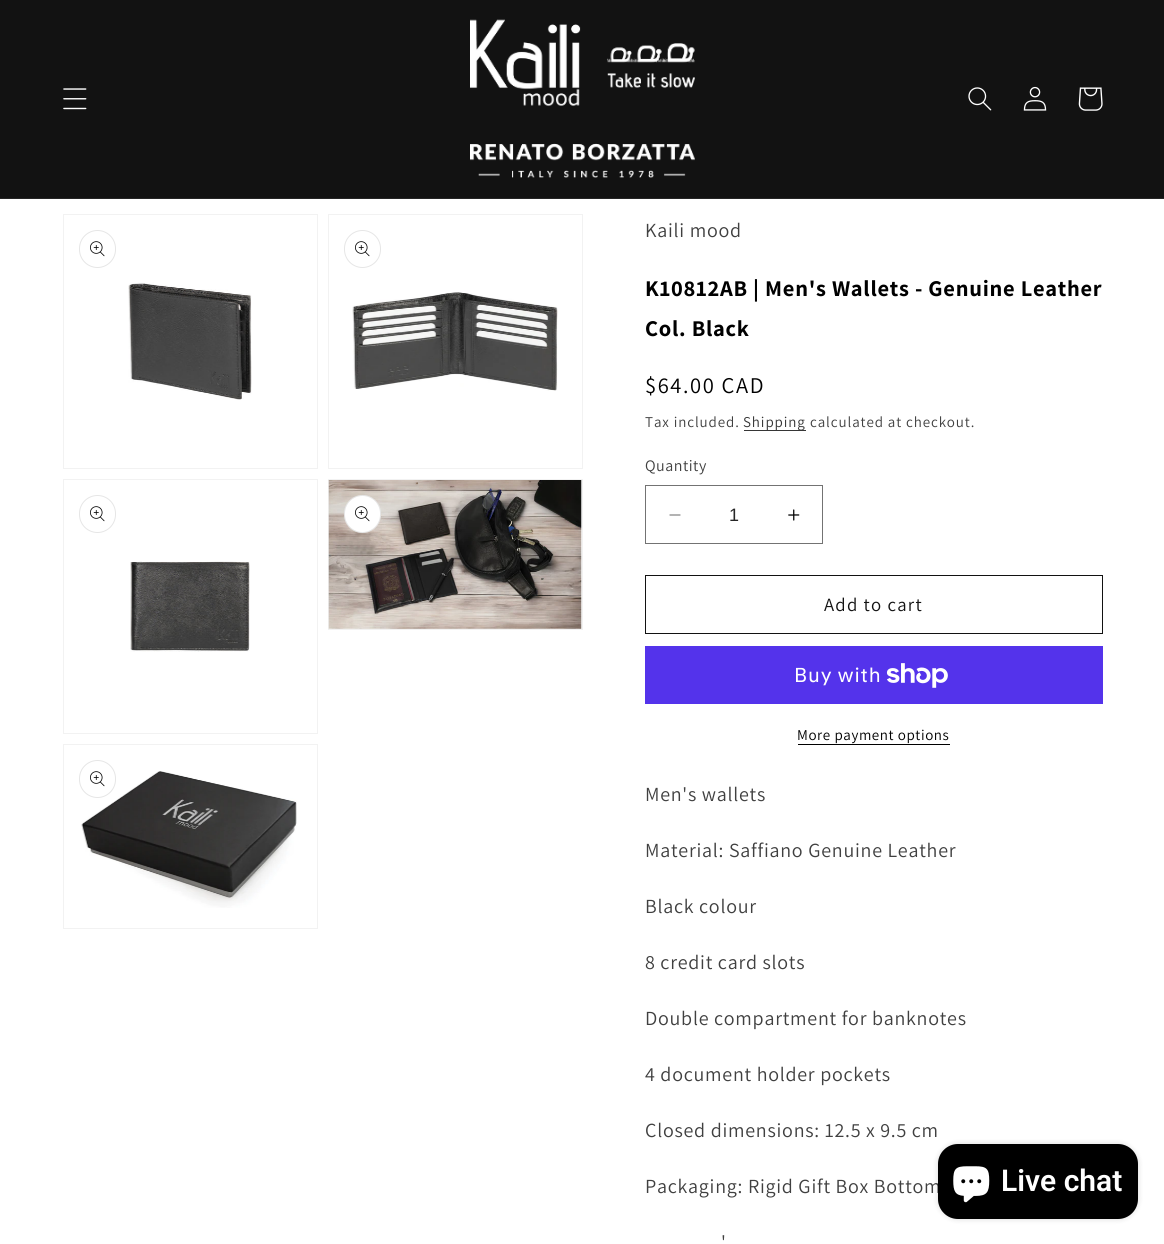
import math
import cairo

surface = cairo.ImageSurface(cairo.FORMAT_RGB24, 1164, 1244)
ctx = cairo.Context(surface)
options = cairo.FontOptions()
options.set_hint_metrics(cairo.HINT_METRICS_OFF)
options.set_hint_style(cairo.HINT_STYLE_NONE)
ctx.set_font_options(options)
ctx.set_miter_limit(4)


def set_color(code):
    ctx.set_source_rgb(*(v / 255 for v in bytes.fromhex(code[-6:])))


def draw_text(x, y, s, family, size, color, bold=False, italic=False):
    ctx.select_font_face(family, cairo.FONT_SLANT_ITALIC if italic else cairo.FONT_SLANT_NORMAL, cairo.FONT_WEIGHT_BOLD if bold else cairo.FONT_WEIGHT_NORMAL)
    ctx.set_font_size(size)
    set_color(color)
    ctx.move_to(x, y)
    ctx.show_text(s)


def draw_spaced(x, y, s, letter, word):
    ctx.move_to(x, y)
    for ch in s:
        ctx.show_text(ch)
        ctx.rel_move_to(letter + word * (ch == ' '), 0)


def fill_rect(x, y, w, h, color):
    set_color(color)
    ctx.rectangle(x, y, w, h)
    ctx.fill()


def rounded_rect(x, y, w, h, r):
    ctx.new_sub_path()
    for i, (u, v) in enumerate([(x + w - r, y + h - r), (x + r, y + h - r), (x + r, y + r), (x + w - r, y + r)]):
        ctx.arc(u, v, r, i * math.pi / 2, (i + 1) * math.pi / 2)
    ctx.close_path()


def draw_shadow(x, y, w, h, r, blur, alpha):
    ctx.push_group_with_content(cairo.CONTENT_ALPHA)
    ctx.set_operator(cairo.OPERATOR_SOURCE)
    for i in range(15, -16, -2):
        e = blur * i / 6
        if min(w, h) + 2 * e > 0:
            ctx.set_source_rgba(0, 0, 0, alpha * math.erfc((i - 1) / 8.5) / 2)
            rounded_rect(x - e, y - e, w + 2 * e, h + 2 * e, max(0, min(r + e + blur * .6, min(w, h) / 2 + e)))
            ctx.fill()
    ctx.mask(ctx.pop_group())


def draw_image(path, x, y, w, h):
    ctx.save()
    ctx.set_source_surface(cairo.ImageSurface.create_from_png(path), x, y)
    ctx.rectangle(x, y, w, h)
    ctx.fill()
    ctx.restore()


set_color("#ffffff")
ctx.paint()
fill_rect(0, 0, 1164, 198, "#121212")
fill_rect(0, 198, 1164, 1, "#252525")
draw_image("assets/img1.png", 63, 88, 24, 22)
draw_image("assets/img2.png", 470, 19, 225, 159)
draw_image("assets/img3.png", 968, 87, 24, 24)
draw_image("assets/img4.png", 1023, 86, 24, 25)
draw_image("assets/img5.png", 1078, 87, 25, 24)
ctx.rectangle(63.5, 214.5, 254, 254)
set_color("#f2f2f2")
ctx.set_line_width(1)
ctx.stroke()
rounded_rect(79.5, 230.5, 36, 37, 18)
set_color("#e6e6e6")
ctx.stroke()
draw_image("assets/img6.png", 90, 241, 15, 16)
draw_image("assets/img7.png", 128, 282, 124, 118)
ctx.rectangle(328.5, 214.5, 254, 254)
set_color("#f2f2f2")
ctx.stroke()
rounded_rect(344.5, 230.5, 36, 37, 18)
set_color("#e6e6e6")
ctx.stroke()
draw_image("assets/img6.png", 355, 241, 15, 16)
draw_image("assets/img8.png", 352, 292, 206, 99)
ctx.rectangle(63.5, 479.5, 254, 254)
set_color("#f2f2f2")
ctx.stroke()
rounded_rect(79.5, 495.5, 36, 37, 18)
set_color("#e6e6e6")
ctx.stroke()
draw_image("assets/img6.png", 90, 506, 15, 16)
draw_image("assets/img9.png", 130, 561, 120, 91)
ctx.rectangle(328.5, 479.5, 254, 150)
set_color("#f2f2f2")
ctx.stroke()
draw_image("assets/img10.png", 328, 480, 254, 149)
set_color("#ffffff")
rounded_rect(344, 495, 37, 38, 18.5)
ctx.fill()
rounded_rect(344.5, 495.5, 36, 37, 18)
ctx.set_source_rgba(0, 0, 0, 0.1)
ctx.stroke()
draw_image("assets/img6.png", 355, 506, 15, 16)
ctx.rectangle(63.5, 744.5, 254, 184)
set_color("#f2f2f2")
ctx.stroke()
draw_image("assets/img11.png", 81, 771, 216, 137)
rounded_rect(79.5, 760.5, 36, 37, 18)
set_color("#e6e6e6")
ctx.stroke()
draw_image("assets/img6.png", 90, 771, 15, 16)
ctx.select_font_face("Assistant")
ctx.set_font_size(20)
set_color("#404040")
draw_spaced(645, 237, "Kaili mood", 0.75, 0)
ctx.select_font_face("Assistant", cairo.FONT_SLANT_NORMAL, cairo.FONT_WEIGHT_BOLD)
ctx.set_font_size(22.5)
set_color("#000000")
draw_spaced(645, 296, "K10812AB | Men's Wallets - Genuine Leather", 0.75, 0)
draw_spaced(645, 336, "Col. Black", 0.75, 0)
ctx.select_font_face("Assistant")
draw_spaced(645, 393, "$64.00 CAD", 1.6, 0)
ctx.set_font_size(15)
set_color("#404040")
draw_spaced(645, 427, "Tax included.", 0.9, 0)
fill_rect(744, 430, 62, 1, "#363636")
set_color("#353535")
draw_spaced(743, 427, "Shipping", 0.9, 0)
set_color("#404040")
draw_spaced(810, 427, "calculated at checkout.", 0.9, 0)
ctx.set_font_size(16)
draw_spaced(645, 471, "Quantity", 0.5, 0)
draw_image("assets/img12.png", 669, 514, 12, 2)
draw_image("assets/img13.png", 788, 509, 12, 12)
ctx.rectangle(645.5, 485.5, 177, 58)
set_color("#737373")
ctx.stroke()
draw_text(729, 521, "1", "Liberation Sans", 18, "#262626")
ctx.rectangle(645.5, 575.5, 457, 58)
set_color("#121212")
ctx.stroke()
ctx.select_font_face("Assistant")
ctx.set_font_size(18.75)
draw_spaced(824, 611, "Add to cart", 1.25, 0)
fill_rect(645, 646, 458, 58, "#5433eb")
ctx.select_font_face("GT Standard")
ctx.set_font_size(20)
set_color("#ffffff")
draw_spaced(794, 682, "Buy with", 0.75, 0)
draw_image("assets/img14.png", 886, 663, 62, 25)
ctx.select_font_face("Assistant")
ctx.set_font_size(15)
set_color("#000000")
draw_spaced(797, 740, "More payment options", 0.6, 0)
fill_rect(798, 744, 152, 1, "#000000")
ctx.set_font_size(20)
set_color("#404040")
draw_spaced(645, 801, "Men's wallets", 0.75, 0)
draw_spaced(645, 857, "Material: Saffiano Genuine Leather", 0.75, 0)
draw_spaced(645, 913, "Black colour", 0.75, 0)
draw_spaced(645, 969, "8 credit card slots", 0.75, 0)
draw_spaced(645, 1025, "Double compartment for banknotes", 0.75, 0)
draw_spaced(645, 1081, "4 document holder pockets", 0.75, 0)
draw_spaced(645, 1137, "Closed dimensions: 12.5 x 9.5 cm", 0.75, 0)
draw_spaced(645, 1193, "Packaging: Rigid Gift Box Bottom", 0.75, 0)
draw_spaced(721, 1249, "'", 0.75, 0)
set_color("#000000")
draw_shadow(938, 1144, 200, 75, 20, 3, 0.15)
set_color("#000000")
rounded_rect(938, 1144, 200, 75, 20)
ctx.fill()
draw_image("assets/img15.png", 953, 1166, 37, 37)
draw_text(1001, 1191, "Live chat", "Roboto SemiBold", 30, "#ffffff")
surface.write_to_png("output.png")
